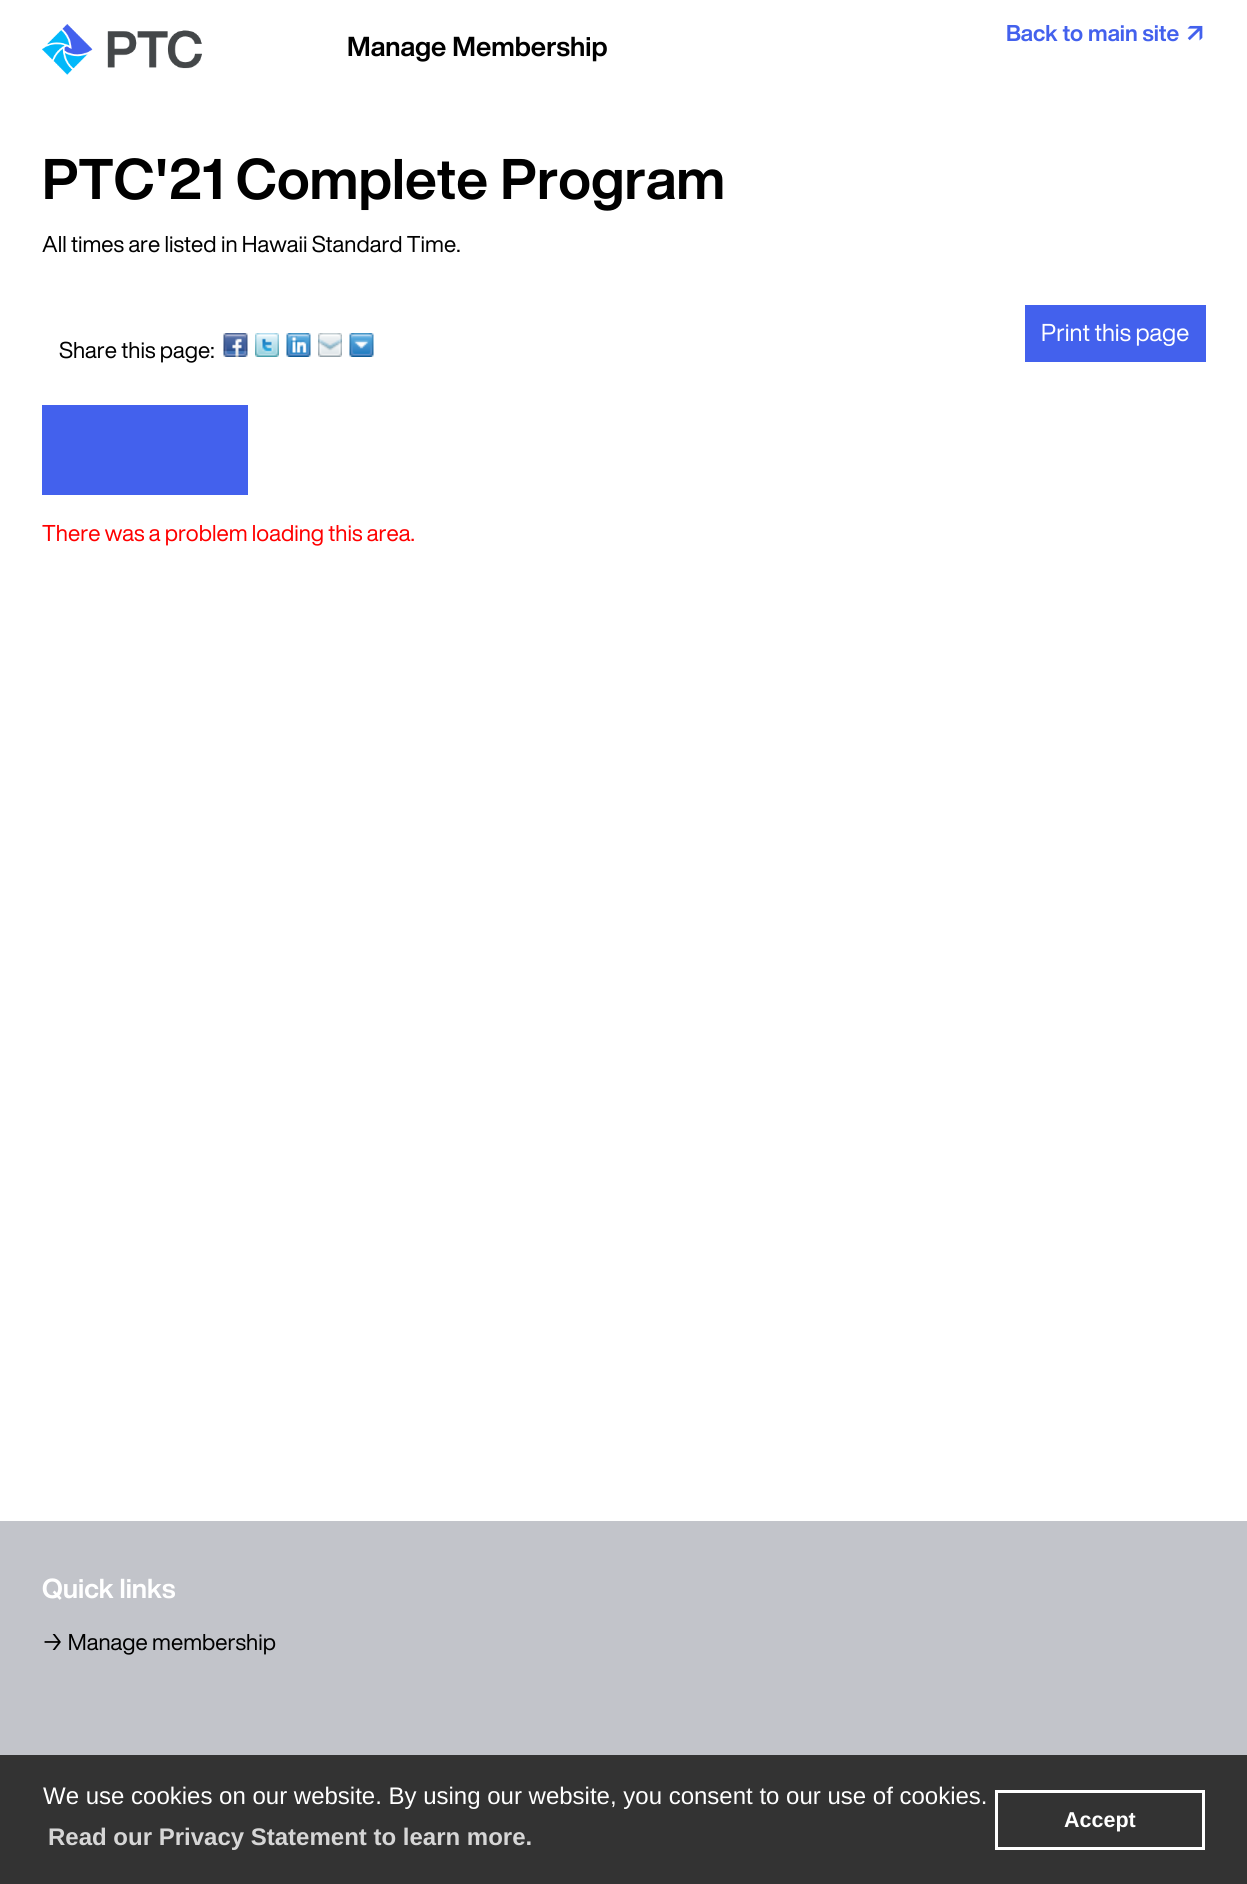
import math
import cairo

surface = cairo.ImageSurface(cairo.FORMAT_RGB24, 1247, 1884)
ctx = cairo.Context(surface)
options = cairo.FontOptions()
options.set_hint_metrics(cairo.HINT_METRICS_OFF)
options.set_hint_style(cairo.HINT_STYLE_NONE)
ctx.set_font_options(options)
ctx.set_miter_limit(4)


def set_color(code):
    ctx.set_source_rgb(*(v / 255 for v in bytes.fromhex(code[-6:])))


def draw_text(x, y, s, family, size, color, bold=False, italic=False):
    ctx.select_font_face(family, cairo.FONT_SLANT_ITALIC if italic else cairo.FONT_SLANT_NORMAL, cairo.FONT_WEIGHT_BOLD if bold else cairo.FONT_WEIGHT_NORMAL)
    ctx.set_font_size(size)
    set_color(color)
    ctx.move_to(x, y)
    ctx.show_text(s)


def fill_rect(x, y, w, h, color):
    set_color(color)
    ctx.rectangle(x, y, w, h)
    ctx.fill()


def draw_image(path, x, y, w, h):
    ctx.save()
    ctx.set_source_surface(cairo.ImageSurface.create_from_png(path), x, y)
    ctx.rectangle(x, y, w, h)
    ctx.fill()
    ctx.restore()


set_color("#ffffff")
ctx.paint()
draw_image("assets/img1.png", 42, 24, 160, 51)
draw_text(1006, 41, "Back to main site ↗", "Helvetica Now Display", 22.5, "#4361ed", bold=True)
draw_text(347, 56, "Manage Membership", "Helvetica Now Display", 27, "#000000", bold=True)
draw_text(42, 199, "PTC'21 Complete Program", "Helvetica Now Display", 56.25, "#000000", bold=True)
draw_text(42, 252, "All times are listed in Hawaii Standard Time.", "Helvetica Now Display", 22.5, "#000000")
fill_rect(1025, 305, 181, 57, "#4361ed")
draw_text(1041, 341, "Print this page", "Helvetica Now Display", 24, "#ffffff")
draw_text(59, 358, "Share this page:", "Helvetica Now Display", 22.5, "#000000")
draw_image("assets/img2.png", 223, 333, 25, 24)
draw_image("assets/img3.png", 255, 333, 24, 24)
draw_image("assets/img4.png", 286, 333, 25, 24)
draw_image("assets/img5.png", 318, 333, 24, 24)
draw_image("assets/img6.png", 349, 333, 25, 24)
fill_rect(42, 405, 206, 90, "#4361ed")
draw_text(42, 541, "There was a problem loading this area.", "Helvetica Now Display", 22.5, "#ff0000")
fill_rect(0, 1521, 1247, 234, "#c2c4ca")
draw_text(42, 1598, "Quick links", "Helvetica Now Display", 27, "#ffffff", bold=True)
draw_text(42, 1650, "→ Manage membership", "Helvetica Now Display", 22.5, "#000000")
fill_rect(0, 1755, 1247, 129, "#333333")
draw_text(43, 1804, "We use cookies on our website. By using our website, you consent to our use of cookies.", "Liberation Sans", 24, "#ffffff")
draw_text(48, 1845, "Read our Privacy Statement to learn more.", "Liberation Sans", 24, "#d6d6d6", bold=True)
ctx.rectangle(996.5, 1791.5, 207, 57)
set_color("#ffffff")
ctx.set_line_width(3)
ctx.stroke()
draw_text(1064, 1827, "Accept", "Liberation Sans", 21.5, "#ffffff", bold=True)
surface.write_to_png("output.png")
